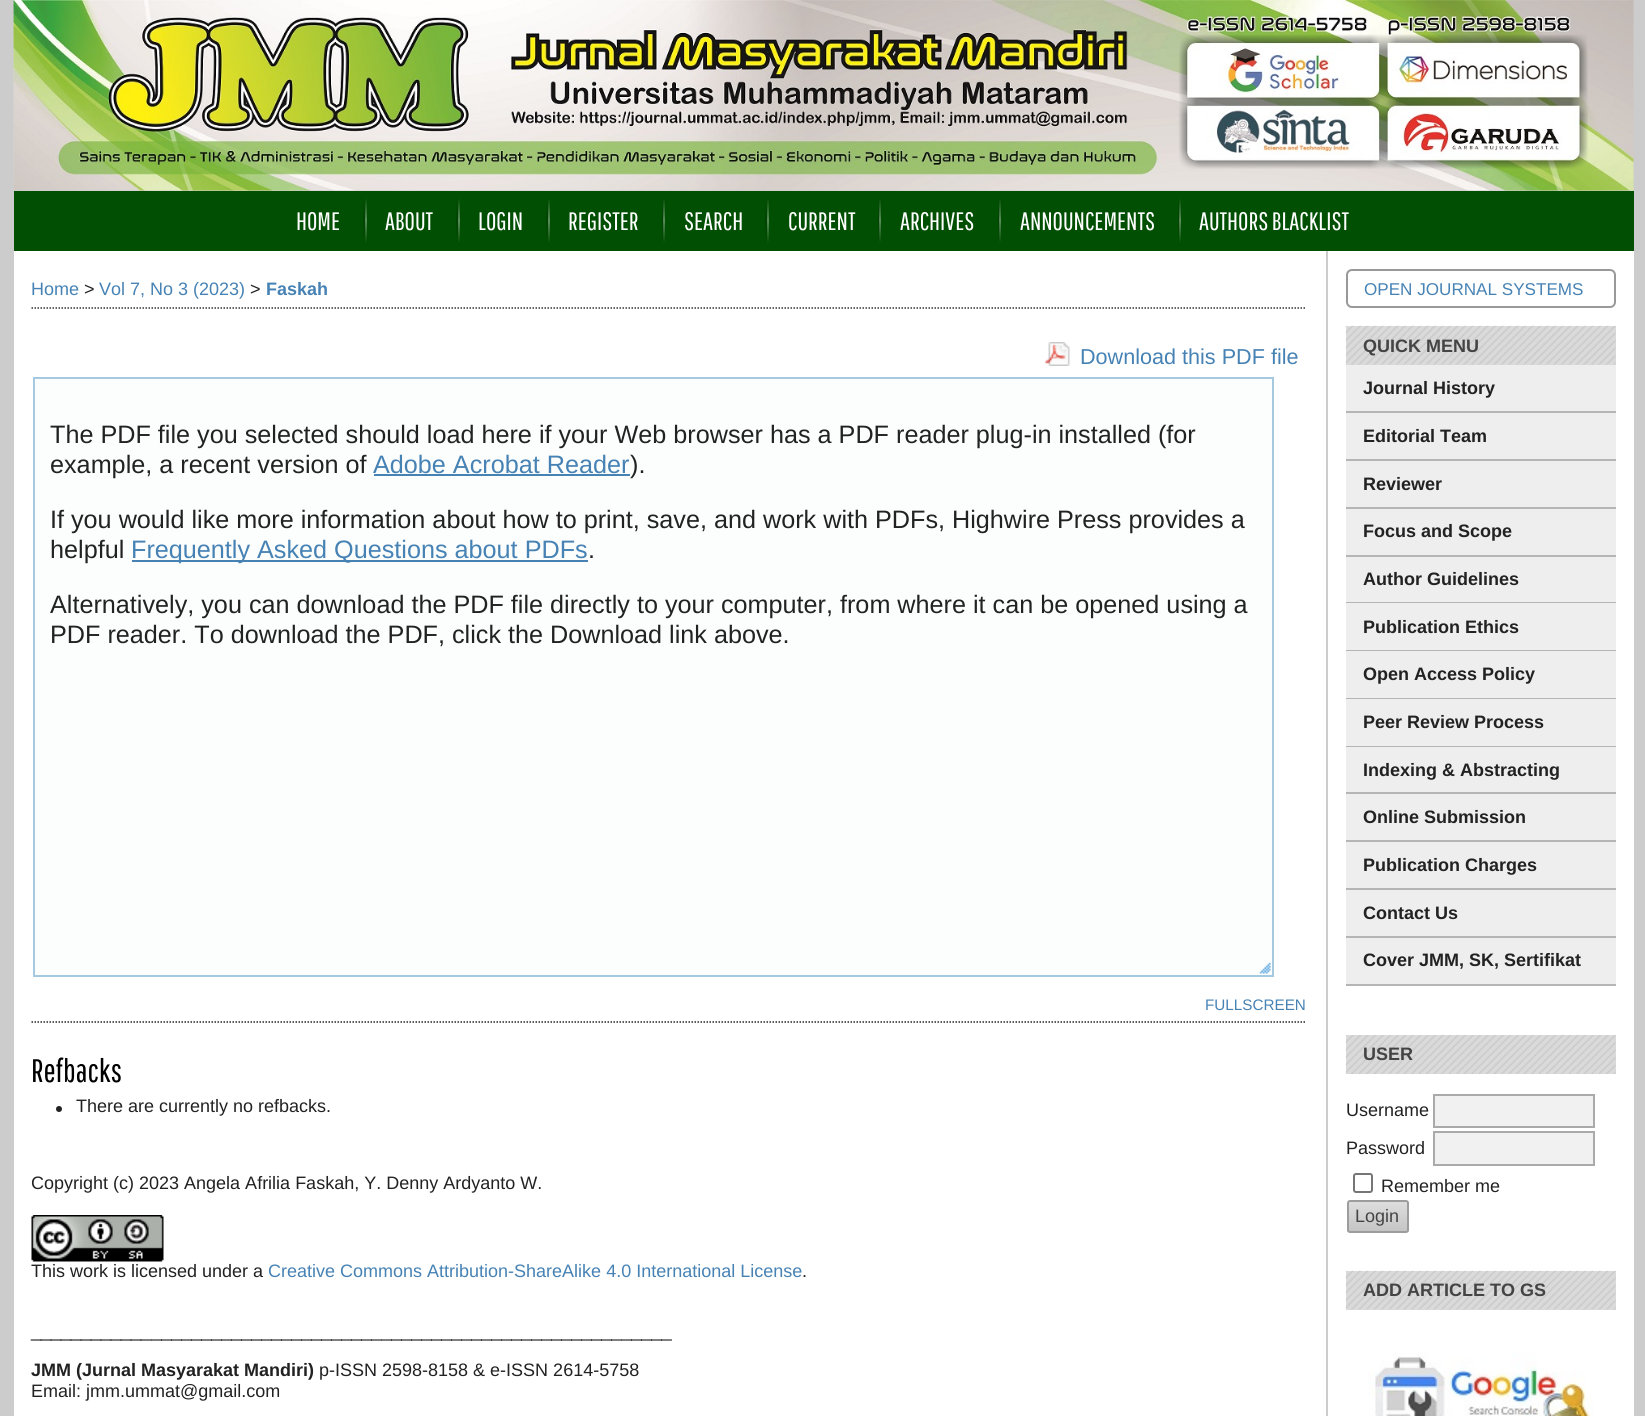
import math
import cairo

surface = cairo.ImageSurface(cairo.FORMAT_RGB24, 1645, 1416)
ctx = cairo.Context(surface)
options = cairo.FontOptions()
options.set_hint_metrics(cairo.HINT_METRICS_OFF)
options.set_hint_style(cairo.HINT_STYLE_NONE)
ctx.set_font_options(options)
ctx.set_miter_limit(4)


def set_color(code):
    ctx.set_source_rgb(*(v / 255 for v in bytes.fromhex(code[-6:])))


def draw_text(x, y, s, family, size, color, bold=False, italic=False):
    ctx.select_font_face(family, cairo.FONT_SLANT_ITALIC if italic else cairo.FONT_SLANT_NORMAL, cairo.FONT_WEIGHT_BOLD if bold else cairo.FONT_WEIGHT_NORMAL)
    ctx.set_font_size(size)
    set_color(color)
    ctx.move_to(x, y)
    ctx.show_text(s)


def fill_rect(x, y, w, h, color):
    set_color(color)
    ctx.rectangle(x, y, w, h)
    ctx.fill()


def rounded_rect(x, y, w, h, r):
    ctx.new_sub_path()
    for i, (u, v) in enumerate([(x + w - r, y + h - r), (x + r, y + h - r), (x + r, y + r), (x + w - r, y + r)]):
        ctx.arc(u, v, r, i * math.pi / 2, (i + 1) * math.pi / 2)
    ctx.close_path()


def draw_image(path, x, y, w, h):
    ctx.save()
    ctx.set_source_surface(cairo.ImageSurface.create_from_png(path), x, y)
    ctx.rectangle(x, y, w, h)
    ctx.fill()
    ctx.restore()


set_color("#cccccc")
ctx.paint()
draw_image("assets/img1.png", 13, 0, 1621, 191)
fill_rect(14, 251, 1620, 1165, "#ffffff")
fill_rect(14, 191, 1620, 60, "#014f02")
draw_text(296, 230, "HOME", "Pathway Gothic One", 25.2, "#ffffff")
gradient = cairo.LinearGradient(364, 198, 364, 243)
gradient.add_color_stop_rgba(0, 0.004, 0.31, 0.008, 1)
gradient.add_color_stop_rgba(0.5, 0.004, 0.263, 0.008, 1)
gradient.add_color_stop_rgba(1, 0.004, 0.31, 0.008, 1)
ctx.set_source(gradient)
ctx.rectangle(363, 198, 2, 45)
ctx.fill()
gradient = cairo.LinearGradient(365, 198, 365, 243)
gradient.add_color_stop_rgba(0, 0.004, 0.31, 0.008, 1)
gradient.add_color_stop_rgba(0.5, 0.353, 0.553, 0.357, 1)
gradient.add_color_stop_rgba(1, 0.004, 0.31, 0.008, 1)
ctx.set_source(gradient)
ctx.rectangle(365, 198, 2, 45)
ctx.fill()
draw_text(385, 230, "ABOUT", "Pathway Gothic One", 25.2, "#ffffff")
gradient = cairo.LinearGradient(457, 198, 457, 243)
gradient.add_color_stop_rgba(0, 0.004, 0.31, 0.008, 1)
gradient.add_color_stop_rgba(0.5, 0.004, 0.263, 0.008, 1)
gradient.add_color_stop_rgba(1, 0.004, 0.31, 0.008, 1)
ctx.set_source(gradient)
ctx.rectangle(456, 198, 2, 45)
ctx.fill()
gradient = cairo.LinearGradient(458, 198, 458, 243)
gradient.add_color_stop_rgba(0, 0.004, 0.31, 0.008, 1)
gradient.add_color_stop_rgba(0.5, 0.353, 0.553, 0.357, 1)
gradient.add_color_stop_rgba(1, 0.004, 0.31, 0.008, 1)
ctx.set_source(gradient)
ctx.rectangle(458, 198, 2, 45)
ctx.fill()
draw_text(478, 230, "LOGIN", "Pathway Gothic One", 25.2, "#ffffff")
gradient = cairo.LinearGradient(547, 198, 547, 243)
gradient.add_color_stop_rgba(0, 0.004, 0.31, 0.008, 1)
gradient.add_color_stop_rgba(0.5, 0.004, 0.263, 0.008, 1)
gradient.add_color_stop_rgba(1, 0.004, 0.31, 0.008, 1)
ctx.set_source(gradient)
ctx.rectangle(546, 198, 2, 45)
ctx.fill()
gradient = cairo.LinearGradient(548, 198, 548, 243)
gradient.add_color_stop_rgba(0, 0.004, 0.31, 0.008, 1)
gradient.add_color_stop_rgba(0.5, 0.353, 0.553, 0.357, 1)
gradient.add_color_stop_rgba(1, 0.004, 0.31, 0.008, 1)
ctx.set_source(gradient)
ctx.rectangle(548, 198, 2, 45)
ctx.fill()
draw_text(568, 230, "REGISTER", "Pathway Gothic One", 25.2, "#ffffff")
gradient = cairo.LinearGradient(662, 198, 662, 243)
gradient.add_color_stop_rgba(0, 0.004, 0.31, 0.008, 1)
gradient.add_color_stop_rgba(0.5, 0.004, 0.263, 0.008, 1)
gradient.add_color_stop_rgba(1, 0.004, 0.31, 0.008, 1)
ctx.set_source(gradient)
ctx.rectangle(662, 198, 2, 45)
ctx.fill()
gradient = cairo.LinearGradient(664, 198, 664, 243)
gradient.add_color_stop_rgba(0, 1, 1, 1, 0)
gradient.add_color_stop_rgba(0.5, 1, 1, 1, 0.35)
gradient.add_color_stop_rgba(1, 1, 1, 1, 0)
ctx.set_source(gradient)
ctx.rectangle(663, 198, 2, 45)
ctx.fill()
draw_text(684, 230, "SEARCH", "Pathway Gothic One", 25.2, "#ffffff")
gradient = cairo.LinearGradient(766, 198, 766, 243)
gradient.add_color_stop_rgba(0, 0.004, 0.31, 0.008, 1)
gradient.add_color_stop_rgba(0.5, 0.004, 0.263, 0.008, 1)
gradient.add_color_stop_rgba(1, 0.004, 0.31, 0.008, 1)
ctx.set_source(gradient)
ctx.rectangle(765, 198, 2, 45)
ctx.fill()
gradient = cairo.LinearGradient(767, 198, 767, 243)
gradient.add_color_stop_rgba(0, 0.004, 0.31, 0.008, 1)
gradient.add_color_stop_rgba(0.5, 0.353, 0.553, 0.357, 1)
gradient.add_color_stop_rgba(1, 0.004, 0.31, 0.008, 1)
ctx.set_source(gradient)
ctx.rectangle(767, 198, 2, 45)
ctx.fill()
draw_text(788, 230, "CURRENT", "Pathway Gothic One", 25.2, "#ffffff")
gradient = cairo.LinearGradient(878, 198, 878, 243)
gradient.add_color_stop_rgba(0, 0.004, 0.31, 0.008, 1)
gradient.add_color_stop_rgba(0.5, 0.004, 0.263, 0.008, 1)
gradient.add_color_stop_rgba(1, 0.004, 0.31, 0.008, 1)
ctx.set_source(gradient)
ctx.rectangle(878, 198, 2, 45)
ctx.fill()
gradient = cairo.LinearGradient(880, 198, 880, 243)
gradient.add_color_stop_rgba(0, 1, 1, 1, 0)
gradient.add_color_stop_rgba(0.5, 1, 1, 1, 0.35)
gradient.add_color_stop_rgba(1, 1, 1, 1, 0)
ctx.set_source(gradient)
ctx.rectangle(879, 198, 2, 45)
ctx.fill()
draw_text(900, 230, "ARCHIVES", "Pathway Gothic One", 25.2, "#ffffff")
gradient = cairo.LinearGradient(998, 198, 998, 243)
gradient.add_color_stop_rgba(0, 0.004, 0.31, 0.008, 1)
gradient.add_color_stop_rgba(0.5, 0.004, 0.263, 0.008, 1)
gradient.add_color_stop_rgba(1, 0.004, 0.31, 0.008, 1)
ctx.set_source(gradient)
ctx.rectangle(998, 198, 2, 45)
ctx.fill()
gradient = cairo.LinearGradient(1000, 198, 1000, 243)
gradient.add_color_stop_rgba(0, 1, 1, 1, 0)
gradient.add_color_stop_rgba(0.5, 1, 1, 1, 0.35)
gradient.add_color_stop_rgba(1, 1, 1, 1, 0)
ctx.set_source(gradient)
ctx.rectangle(999, 198, 2, 45)
ctx.fill()
draw_text(1020, 230, "ANNOUNCEMENTS", "Pathway Gothic One", 25.2, "#ffffff")
gradient = cairo.LinearGradient(1178, 198, 1178, 243)
gradient.add_color_stop_rgba(0, 0.004, 0.31, 0.008, 1)
gradient.add_color_stop_rgba(0.5, 0.004, 0.263, 0.008, 1)
gradient.add_color_stop_rgba(1, 0.004, 0.31, 0.008, 1)
ctx.set_source(gradient)
ctx.rectangle(1178, 198, 2, 45)
ctx.fill()
gradient = cairo.LinearGradient(1180, 198, 1180, 243)
gradient.add_color_stop_rgba(0, 1, 1, 1, 0)
gradient.add_color_stop_rgba(0.5, 1, 1, 1, 0.35)
gradient.add_color_stop_rgba(1, 1, 1, 1, 0)
ctx.set_source(gradient)
ctx.rectangle(1179, 198, 2, 45)
ctx.fill()
draw_text(1199, 230, "AUTHORS BLACKLIST", "Pathway Gothic One", 25.2, "#ffffff")
ctx.new_path()
ctx.move_to(31.5, 308)
ctx.line_to(1306.5, 308)
set_color("#333333")
ctx.set_line_width(1.5)
ctx.set_dash([1.5, 1.5])
ctx.stroke()
draw_text(31, 295, "Home", "Liberation Sans", 18, "#4682b4")
draw_text(84, 295, ">", "Liberation Sans", 18, "#222222")
draw_text(99, 295, "Vol 7, No 3 (2023)", "Liberation Sans", 18, "#4682b4")
draw_text(250, 295, ">", "Liberation Sans", 18, "#222222")
draw_text(266, 295, "Faskah", "Liberation Sans", 18, "#4682b4", bold=True)
draw_image("assets/img2.png", 1045, 342, 25, 24)
draw_text(1080, 364, "Download this PDF file", "Liberation Sans", 21.6, "#4682b4")
set_color("#fcfdfd")
ctx.rectangle(34, 378, 1239, 598)
ctx.fill_preserve()
set_color("#a6c9e2")
ctx.set_line_width(2)
ctx.set_dash([])
ctx.stroke()
draw_text(50, 443, "The PDF file you selected should load here if your Web browser has a PDF reader plug-in installed (for", "Liberation Sans", 25.2, "#222222")
draw_text(50, 473, "example, a recent version of", "Liberation Sans", 25.2, "#222222")
draw_text(373, 473, "Adobe Acrobat Reader", "Liberation Sans", 25.2, "#4682b4")
fill_rect(374, 474, 256, 2, "#4682b4")
draw_text(630, 473, ").", "Liberation Sans", 25.2, "#222222")
draw_text(50, 528, "If you would like more information about how to print, save, and work with PDFs, Highwire Press provides a", "Liberation Sans", 25.2, "#222222")
draw_text(50, 558, "helpful", "Liberation Sans", 25.2, "#222222")
fill_rect(132, 560, 456, 2, "#4682b4")
draw_text(131, 558, "Frequently Asked Questions about PDFs", "Liberation Sans", 25.2, "#4682b4")
draw_text(588, 558, ".", "Liberation Sans", 25.2, "#222222")
draw_text(50, 613, "Alternatively, you can download the PDF file directly to your computer, from where it can be opened using a", "Liberation Sans", 25.2, "#222222")
draw_text(50, 643, "PDF reader. To download the PDF, click the Download link above.", "Liberation Sans", 25.2, "#222222")
draw_image("assets/img3.png", 1259, 962, 12, 12)
draw_text(1205, 1010, "FULLSCREEN", "Liberation Sans", 15.25, "#4682b4")
ctx.new_path()
ctx.move_to(31.5, 1022)
ctx.line_to(1306.5, 1022)
set_color("#222222")
ctx.set_line_width(1.5)
ctx.set_dash([1.5, 1.5])
ctx.stroke()
draw_text(31, 1082, "Refbacks", "Pathway Gothic One", 32.5, "#000000")
set_color("#222222")
ctx.new_path()
ctx.arc(59, 1109, 3, 0, 2 * math.pi)
ctx.fill()
draw_text(76, 1112, "There are currently no refbacks.", "Liberation Sans", 18, "#222222")
draw_text(31, 1189, "Copyright (c) 2023 Angela Afrilia Faskah, Y. Denny Ardyanto W.", "Liberation Sans", 18, "#222222")
draw_image("assets/img4.png", 31, 1215, 133, 47)
draw_text(31, 1277, "This work is licensed under a", "Liberation Sans", 18, "#222222")
draw_text(268, 1277, "Creative Commons Attribution-ShareAlike 4.0 International License", "Liberation Sans", 18, "#4682b4")
draw_text(802, 1277, ".", "Liberation Sans", 18, "#222222")
draw_text(31, 1337, "________________________________________________________________", "Liberation Sans", 18, "#222222")
draw_text(31, 1376, "JMM (Jurnal Masyarakat Mandiri)", "Liberation Sans", 18, "#222222", bold=True)
draw_text(319, 1376, "p-ISSN 2598-8158 & e-ISSN 2614-5758", "Liberation Sans", 18, "#222222")
draw_text(31, 1397, "Email: jmm.ummat@gmail.com", "Liberation Sans", 18, "#222222")
fill_rect(1326, 251, 2, 1165, "#cccccc")
rounded_rect(1347, 270, 268, 37, 5)
set_color("#999999")
ctx.set_line_width(2)
ctx.set_dash([])
ctx.stroke()
draw_text(1364, 295, "OPEN JOURNAL SYSTEMS", "Liberation Sans", 17.1, "#4682b4")
fill_rect(1346, 326, 270, 39, "#dadada")
draw_image("assets/img5.png", 1345, 325, 271, 40)
draw_text(1363, 352, "QUICK MENU", "Liberation Sans", 18, "#444444", bold=True)
fill_rect(1346, 365, 270, 46, "#eeeeee")
fill_rect(1346, 411, 270, 2, "#b5b5b5")
draw_text(1363, 394, "Journal History", "Liberation Sans", 18, "#222222", bold=True)
fill_rect(1346, 413, 270, 46, "#eeeeee")
fill_rect(1346, 459, 270, 2, "#b5b5b5")
draw_text(1363, 442, "Editorial Team", "Liberation Sans", 18, "#222222", bold=True)
fill_rect(1346, 461, 270, 46, "#eeeeee")
fill_rect(1346, 507, 270, 2, "#b5b5b5")
draw_text(1363, 490, "Reviewer", "Liberation Sans", 18, "#222222", bold=True)
fill_rect(1346, 509, 270, 46, "#eeeeee")
fill_rect(1346, 555, 270, 2, "#b5b5b5")
draw_text(1363, 537, "Focus and Scope", "Liberation Sans", 18, "#222222", bold=True)
fill_rect(1346, 557, 270, 45, "#eeeeee")
fill_rect(1346, 602, 270, 1, "#b5b5b5")
draw_text(1363, 585, "Author Guidelines", "Liberation Sans", 18, "#222222", bold=True)
fill_rect(1346, 603, 270, 47, "#eeeeee")
fill_rect(1346, 650, 270, 1, "#b5b5b5")
draw_text(1363, 633, "Publication Ethics", "Liberation Sans", 18, "#222222", bold=True)
fill_rect(1346, 651, 270, 47, "#eeeeee")
fill_rect(1346, 698, 270, 1, "#b5b5b5")
draw_text(1363, 680, "Open Access Policy", "Liberation Sans", 18, "#222222", bold=True)
fill_rect(1346, 699, 270, 47, "#eeeeee")
fill_rect(1346, 746, 270, 1, "#b5b5b5")
draw_text(1363, 728, "Peer Review Process", "Liberation Sans", 18, "#222222", bold=True)
fill_rect(1346, 747, 270, 45, "#eeeeee")
fill_rect(1346, 792, 270, 2, "#b5b5b5")
draw_text(1363, 776, "Indexing & Abstracting", "Liberation Sans", 18, "#222222", bold=True)
fill_rect(1346, 794, 270, 46, "#eeeeee")
fill_rect(1346, 840, 270, 2, "#b5b5b5")
draw_text(1363, 823, "Online Submission", "Liberation Sans", 18, "#222222", bold=True)
fill_rect(1346, 842, 270, 46, "#eeeeee")
fill_rect(1346, 888, 270, 2, "#b5b5b5")
draw_text(1363, 871, "Publication Charges", "Liberation Sans", 18, "#222222", bold=True)
fill_rect(1346, 890, 270, 46, "#eeeeee")
fill_rect(1346, 936, 270, 2, "#b5b5b5")
draw_text(1363, 919, "Contact Us", "Liberation Sans", 18, "#222222", bold=True)
fill_rect(1346, 938, 270, 46, "#eeeeee")
fill_rect(1346, 984, 270, 2, "#b5b5b5")
draw_text(1363, 966, "Cover JMM, SK, Sertifikat", "Liberation Sans", 18, "#222222", bold=True)
fill_rect(1346, 1035, 270, 39, "#dadada")
draw_image("assets/img6.png", 1345, 1035, 271, 39)
draw_text(1363, 1060, "USER", "Liberation Sans", 18, "#444444", bold=True)
draw_text(1346, 1116, "Username", "Liberation Sans", 18, "#222222")
set_color("#f1f1f1")
ctx.rectangle(1434, 1095, 160, 32)
ctx.fill_preserve()
set_color("#aaaaaa")
ctx.stroke()
draw_text(1346, 1154, "Password", "Liberation Sans", 18, "#222222")
set_color("#f1f1f1")
ctx.rectangle(1434, 1132, 160, 33)
ctx.fill_preserve()
set_color("#aaaaaa")
ctx.stroke()
rounded_rect(1354, 1174, 18, 18, 2)
set_color("#767676")
ctx.stroke()
draw_text(1381, 1192, "Remember me", "Liberation Sans", 18, "#222222")
ctx.save()
rounded_rect(1347, 1200, 62, 33, 3)
ctx.clip()
gradient = cairo.LinearGradient(1378, 1202, 1378, 1232)
gradient.add_color_stop_rgba(0, 0.867, 0.867, 0.867, 1)
gradient.add_color_stop_rgba(1, 0.769, 0.769, 0.769, 1)
ctx.set_source(gradient)
ctx.rectangle(1347, 1202, 62, 30)
ctx.fill()
ctx.restore()
rounded_rect(1348, 1201, 60, 31, 2)
set_color("#9d9d9d")
ctx.stroke()
draw_text(1355, 1222, "Login", "Liberation Sans", 18, "#444444")
fill_rect(1346, 1271, 270, 39, "#dadada")
draw_image("assets/img5.png", 1345, 1270, 271, 40)
draw_text(1363, 1296, "ADD ARTICLE TO GS", "Liberation Sans", 18, "#444444", bold=True)
draw_image("assets/img7.png", 1368, 1353, 225, 63)
surface.write_to_png("output.png")
